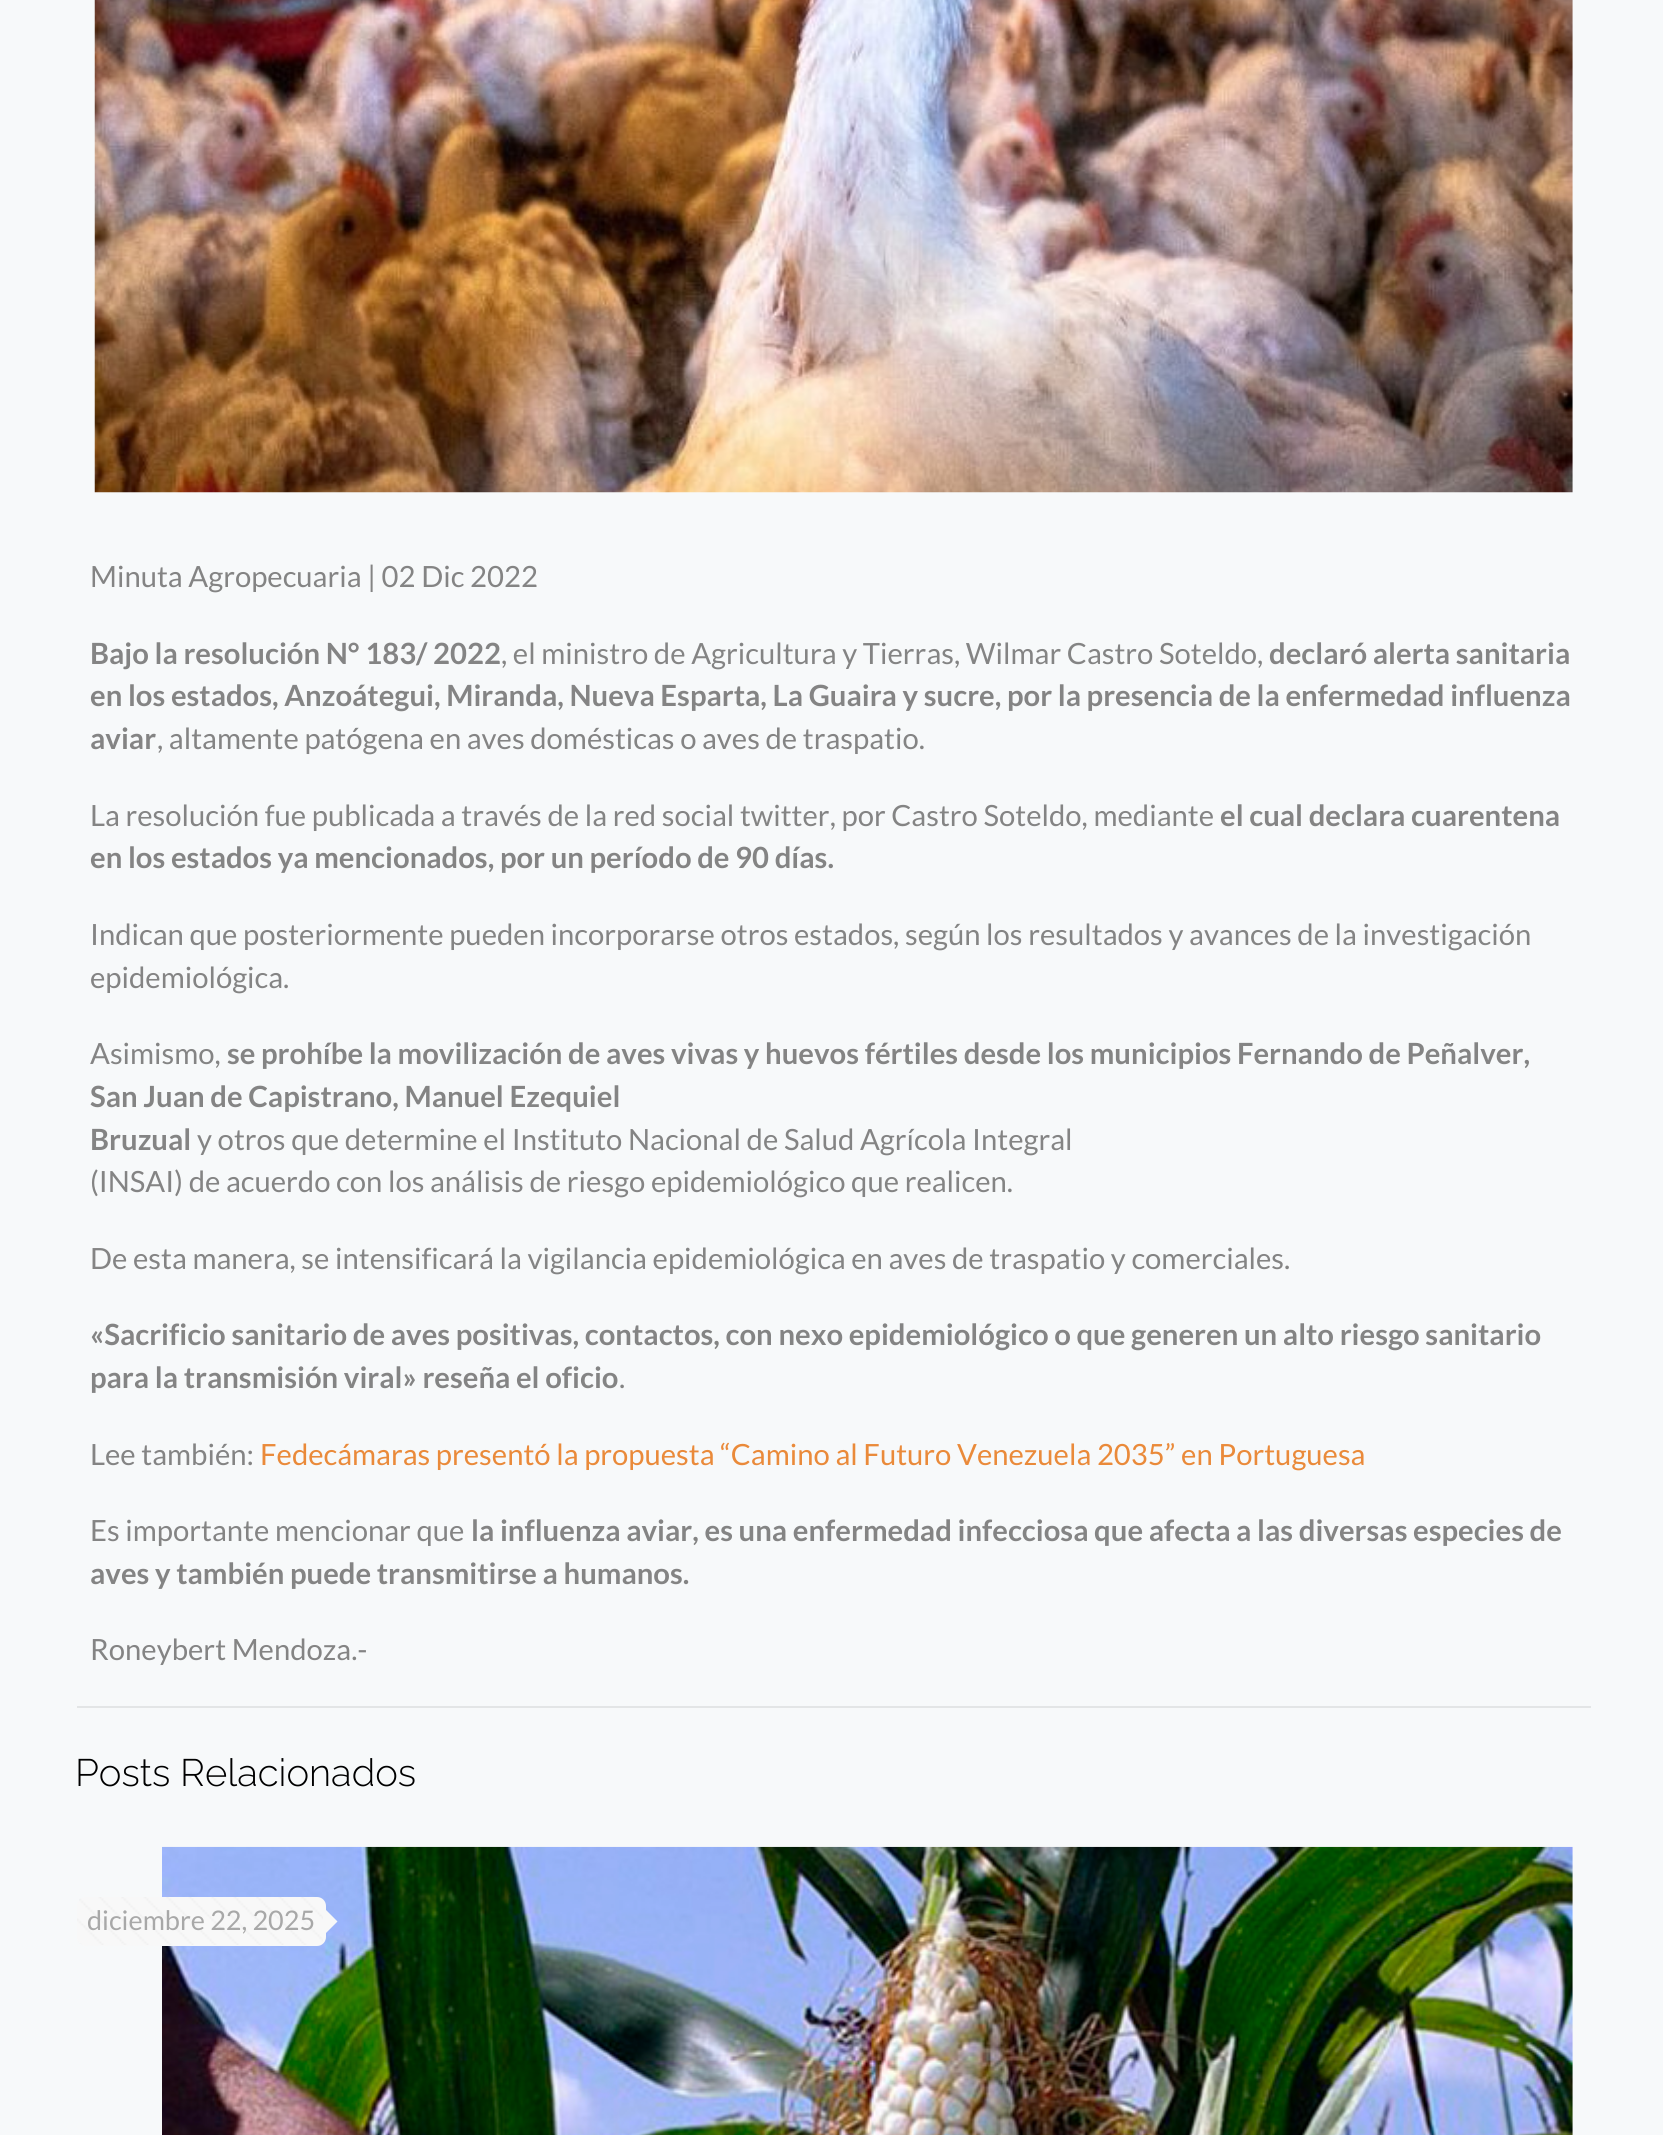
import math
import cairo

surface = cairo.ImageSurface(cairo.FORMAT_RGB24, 1663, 2135)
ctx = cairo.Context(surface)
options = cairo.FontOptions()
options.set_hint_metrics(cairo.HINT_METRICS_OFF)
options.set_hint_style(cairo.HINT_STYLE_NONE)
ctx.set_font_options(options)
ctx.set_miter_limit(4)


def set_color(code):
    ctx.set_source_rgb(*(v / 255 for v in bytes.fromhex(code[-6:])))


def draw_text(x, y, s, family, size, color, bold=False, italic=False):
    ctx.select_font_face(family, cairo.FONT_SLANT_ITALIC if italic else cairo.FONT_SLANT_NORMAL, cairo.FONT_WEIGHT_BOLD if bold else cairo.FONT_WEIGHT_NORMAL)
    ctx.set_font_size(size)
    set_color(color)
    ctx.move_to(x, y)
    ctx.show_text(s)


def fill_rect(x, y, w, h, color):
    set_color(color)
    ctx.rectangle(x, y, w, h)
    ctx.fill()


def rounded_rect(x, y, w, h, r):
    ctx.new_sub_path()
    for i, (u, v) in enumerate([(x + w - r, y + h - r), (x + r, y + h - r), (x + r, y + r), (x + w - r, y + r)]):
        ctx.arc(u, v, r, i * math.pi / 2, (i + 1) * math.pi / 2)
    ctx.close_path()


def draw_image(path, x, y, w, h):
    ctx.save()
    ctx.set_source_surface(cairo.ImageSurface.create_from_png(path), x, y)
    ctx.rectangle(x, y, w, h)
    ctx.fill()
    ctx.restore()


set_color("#f7f9fa")
ctx.paint()
draw_image("assets/img1.png", 94, 0, 1479, 493)
draw_text(90, 587, "Minuta Agropecuaria | 02 Dic 2022", "Lato", 29.25, "#848484")
draw_text(90, 664, "Bajo la resolución N° 183/ 2022", "Lato", 29.25, "#848484", bold=True)
draw_text(501, 664, ", el ministro de Agricultura y Tierras, Wilmar Castro Soteldo,", "Lato", 29.25, "#848484")
draw_text(1269, 664, "declaró alerta sanitaria", "Lato", 29.25, "#848484", bold=True)
draw_text(90, 706, "en los estados, Anzoátegui, Miranda, Nueva Esparta, La Guaira y sucre, por la presencia de la enfermedad influenza", "Lato", 29.25, "#848484", bold=True)
draw_text(90, 749, "aviar", "Lato", 29.25, "#848484", bold=True)
draw_text(157, 749, ", altamente patógena en aves domésticas o aves de traspatio.", "Lato", 29.25, "#848484")
draw_text(90, 826, "La resolución fue publicada a través de la red social twitter, por Castro Soteldo, mediante", "Lato", 29.25, "#848484")
draw_text(1220, 826, "el cual declara cuarentena", "Lato", 29.25, "#848484", bold=True)
draw_text(90, 868, "en los estados ya mencionados, por un período de 90 días.", "Lato", 29.25, "#848484", bold=True)
draw_text(90, 945, "Indican que posteriormente pueden incorporarse otros estados, según los resultados y avances de la investigación", "Lato", 29.25, "#848484")
draw_text(90, 988, "epidemiológica.", "Lato", 29.25, "#848484")
draw_text(90, 1064, "Asimismo,", "Lato", 29.25, "#848484")
draw_text(227, 1064, "se prohíbe la movilización de aves vivas y huevos fértiles desde los municipios Fernando de Peñalver,", "Lato", 29.25, "#848484", bold=True)
draw_text(90, 1107, "San Juan de Capistrano, Manuel Ezequiel", "Lato", 29.25, "#848484", bold=True)
draw_text(90, 1150, "Bruzual", "Lato", 29.25, "#848484", bold=True)
draw_text(197, 1150, "y otros que determine el Instituto Nacional de Salud Agrícola Integral", "Lato", 29.25, "#848484")
draw_text(90, 1192, "(INSAI) de acuerdo con los análisis de riesgo epidemiológico que realicen.", "Lato", 29.25, "#848484")
draw_text(90, 1269, "De esta manera, se intensificará la vigilancia epidemiológica en aves de traspatio y comerciales.", "Lato", 29.25, "#848484")
draw_text(90, 1345, "«Sacrificio sanitario de aves positivas, contactos, con nexo epidemiológico o que generen un alto riesgo sanitario", "Lato", 29.25, "#848484", bold=True)
draw_text(90, 1388, "para la transmisión viral» reseña el oficio", "Lato", 29.25, "#848484", bold=True)
draw_text(619, 1388, ".", "Lato", 29.25, "#848484")
draw_text(90, 1465, "Lee también:", "Lato", 29.25, "#848484")
draw_text(260, 1465, "Fedecámaras presentó la propuesta “Camino al Futuro Venezuela 2035” en Portuguesa", "Lato", 29.25, "#ea8a3a")
draw_text(90, 1541, "Es importante mencionar que", "Lato", 29.25, "#848484")
draw_text(471, 1541, "la influenza aviar, es una enfermedad infecciosa que afecta a las diversas especies de", "Lato", 29.25, "#848484", bold=True)
draw_text(90, 1584, "aves y también puede transmitirse a humanos.", "Lato", 29.25, "#848484", bold=True)
draw_text(90, 1660, "Roneybert Mendoza.-", "Lato", 29.25, "#848484")
fill_rect(77, 1706, 1514, 2, "#e3e5e6")
draw_text(75, 1786, "Posts Relacionados", "Raleway Light", 38.25, "#000000")
draw_image("assets/img2.png", 162, 1846, 1411, 289)
set_color("#f8f8f8")
rounded_rect(77, 1897, 249, 49, 9)
ctx.fill()
draw_image("assets/img3.png", 77, 1897, 246, 48)
draw_text(87, 1930, "diciembre 22, 2025", "Lato", 27, "#a8a8a8")
set_color("#f8f8f8")
ctx.new_path()
ctx.move_to(326, 1933)
ctx.line_to(326, 1910)
ctx.line_to(337.5, 1921.5)
ctx.close_path()
ctx.fill()
surface.write_to_png("output.png")
